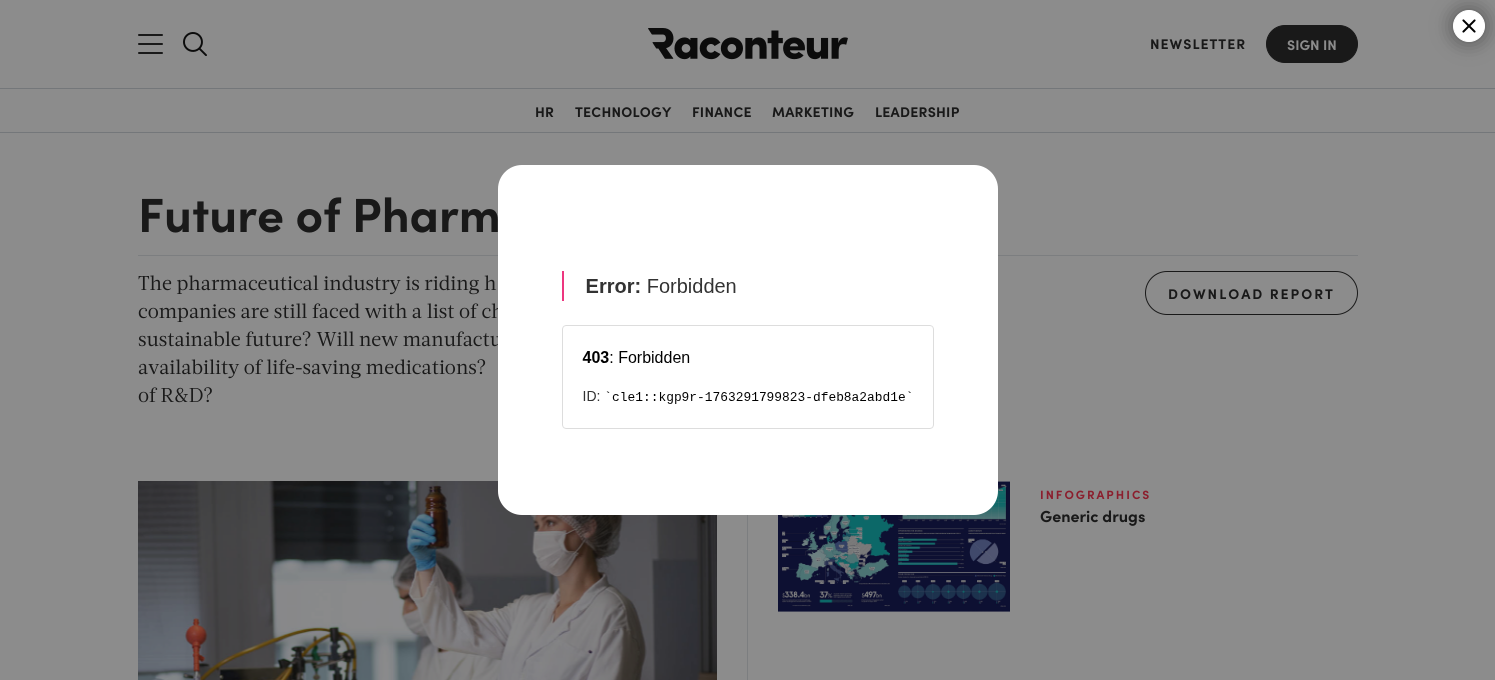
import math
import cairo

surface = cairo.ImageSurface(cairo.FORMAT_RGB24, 1495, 680)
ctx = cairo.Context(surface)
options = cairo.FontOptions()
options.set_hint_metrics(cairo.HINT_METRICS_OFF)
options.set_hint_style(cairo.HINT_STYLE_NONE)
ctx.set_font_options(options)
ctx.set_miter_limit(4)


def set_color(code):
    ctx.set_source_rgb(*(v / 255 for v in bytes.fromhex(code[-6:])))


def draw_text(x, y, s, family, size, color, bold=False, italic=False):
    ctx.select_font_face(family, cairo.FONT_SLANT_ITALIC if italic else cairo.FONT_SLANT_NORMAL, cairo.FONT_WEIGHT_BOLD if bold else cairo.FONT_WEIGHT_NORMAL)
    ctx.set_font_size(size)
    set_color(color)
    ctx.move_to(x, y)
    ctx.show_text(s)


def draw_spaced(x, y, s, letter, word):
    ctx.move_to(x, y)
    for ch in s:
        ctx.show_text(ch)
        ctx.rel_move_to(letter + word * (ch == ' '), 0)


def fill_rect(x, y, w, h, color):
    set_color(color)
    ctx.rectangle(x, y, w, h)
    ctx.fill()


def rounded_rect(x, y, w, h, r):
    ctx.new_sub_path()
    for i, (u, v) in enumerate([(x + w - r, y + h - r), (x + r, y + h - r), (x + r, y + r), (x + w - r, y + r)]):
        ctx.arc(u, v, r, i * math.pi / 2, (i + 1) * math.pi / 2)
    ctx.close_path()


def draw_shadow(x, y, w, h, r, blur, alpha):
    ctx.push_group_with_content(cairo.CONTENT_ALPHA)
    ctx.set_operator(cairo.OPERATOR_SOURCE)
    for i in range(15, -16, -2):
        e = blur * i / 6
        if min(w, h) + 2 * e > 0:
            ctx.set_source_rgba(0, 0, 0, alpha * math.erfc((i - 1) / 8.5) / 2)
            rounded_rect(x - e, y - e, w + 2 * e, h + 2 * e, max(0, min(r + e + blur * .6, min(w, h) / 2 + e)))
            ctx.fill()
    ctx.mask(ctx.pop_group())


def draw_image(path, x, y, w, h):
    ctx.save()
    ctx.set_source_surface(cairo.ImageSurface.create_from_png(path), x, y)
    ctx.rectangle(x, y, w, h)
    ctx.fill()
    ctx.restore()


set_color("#8c8c8c")
ctx.paint()
set_color("#000000")
draw_shadow(1453, 10, 32, 32, 16, 10, 0.4)
set_color("#ffffff")
ctx.arc(1469, 26, 15.5, 0, 2 * math.pi)
ctx.fill_preserve()
ctx.set_line_width(1)
ctx.stroke()
draw_image("assets/img1.png", 1462, 19, 14, 14)
fill_rect(138, 255, 1220, 1, "#7c7e80")
draw_text(138, 318, "companies are still faced with a list of ch", "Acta", 20, "#191919")
draw_text(138, 346, "sustainable future? Will new manufactu", "Acta", 20, "#191919")
draw_image("assets/img5.png", 138, 481, 579, 199)
draw_image("assets/img6.png", 778, 481, 232, 131)
set_color("#ffffff")
rounded_rect(498, 165, 500, 350, 24)
ctx.fill()
draw_image("assets/img2.png", 562, 271, 372, 158)
fill_rect(0, 88, 1495, 1, "#74777a")
set_color("#191919")
rounded_rect(138, 34, 25, 2, 1)
ctx.fill()
rounded_rect(138, 43, 25, 2, 1)
ctx.fill()
rounded_rect(138, 52, 25, 2, 1)
ctx.fill()
draw_image("assets/img3.png", 183, 32, 24, 24)
draw_image("assets/img4.png", 648, 28, 200, 32)
ctx.select_font_face("Sofia", cairo.FONT_SLANT_NORMAL, cairo.FONT_WEIGHT_BOLD)
ctx.set_font_size(14)
draw_spaced(1150, 49, "NEWSLETTER", 1, 0)
rounded_rect(1266.5, 25.5, 91, 37, 18.5)
ctx.fill_preserve()
ctx.stroke()
draw_text(1287, 50, "SIGN IN", "Sofia", 14, "#8c8c8c", bold=True)
fill_rect(0, 132, 1495, 1, "#74777a")
set_color("#191919")
draw_spaced(535, 117, "HR", 0.25, 0)
draw_spaced(575, 117, "TECHNOLOGY", 0.25, 0)
draw_spaced(692, 117, "FINANCE", 0.25, 0)
draw_spaced(772, 117, "MARKETING", 0.25, 0)
draw_spaced(875, 117, "LEADERSHIP", 0.25, 0)
draw_text(138, 232, "Future of Pharm", "Sofia", 48, "#191919", bold=True)
draw_text(138, 290, "The pharmaceutical industry is riding h", "Acta", 20, "#191919")
draw_text(138, 374, "availability of life-saving medications?", "Acta", 20, "#191919")
draw_text(138, 402, "of R&D?", "Acta", 20, "#191919")
rounded_rect(1145.5, 271.5, 212, 43, 21.5)
ctx.stroke()
ctx.select_font_face("Sofia", cairo.FONT_SLANT_NORMAL, cairo.FONT_WEIGHT_BOLD)
ctx.set_font_size(14)
draw_spaced(1168, 299, "DOWNLOAD REPORT", 2, 0)
fill_rect(747, 515, 1, 165, "#7c7e80")
ctx.set_font_size(12)
set_color("#8b1e2d")
draw_spaced(1040, 499, "INFOGRAPHICS", 2, 0)
draw_text(1040, 522, "Generic drugs", "Sofia", 16, "#191919", bold=True)
surface.write_to_png("output.png")
